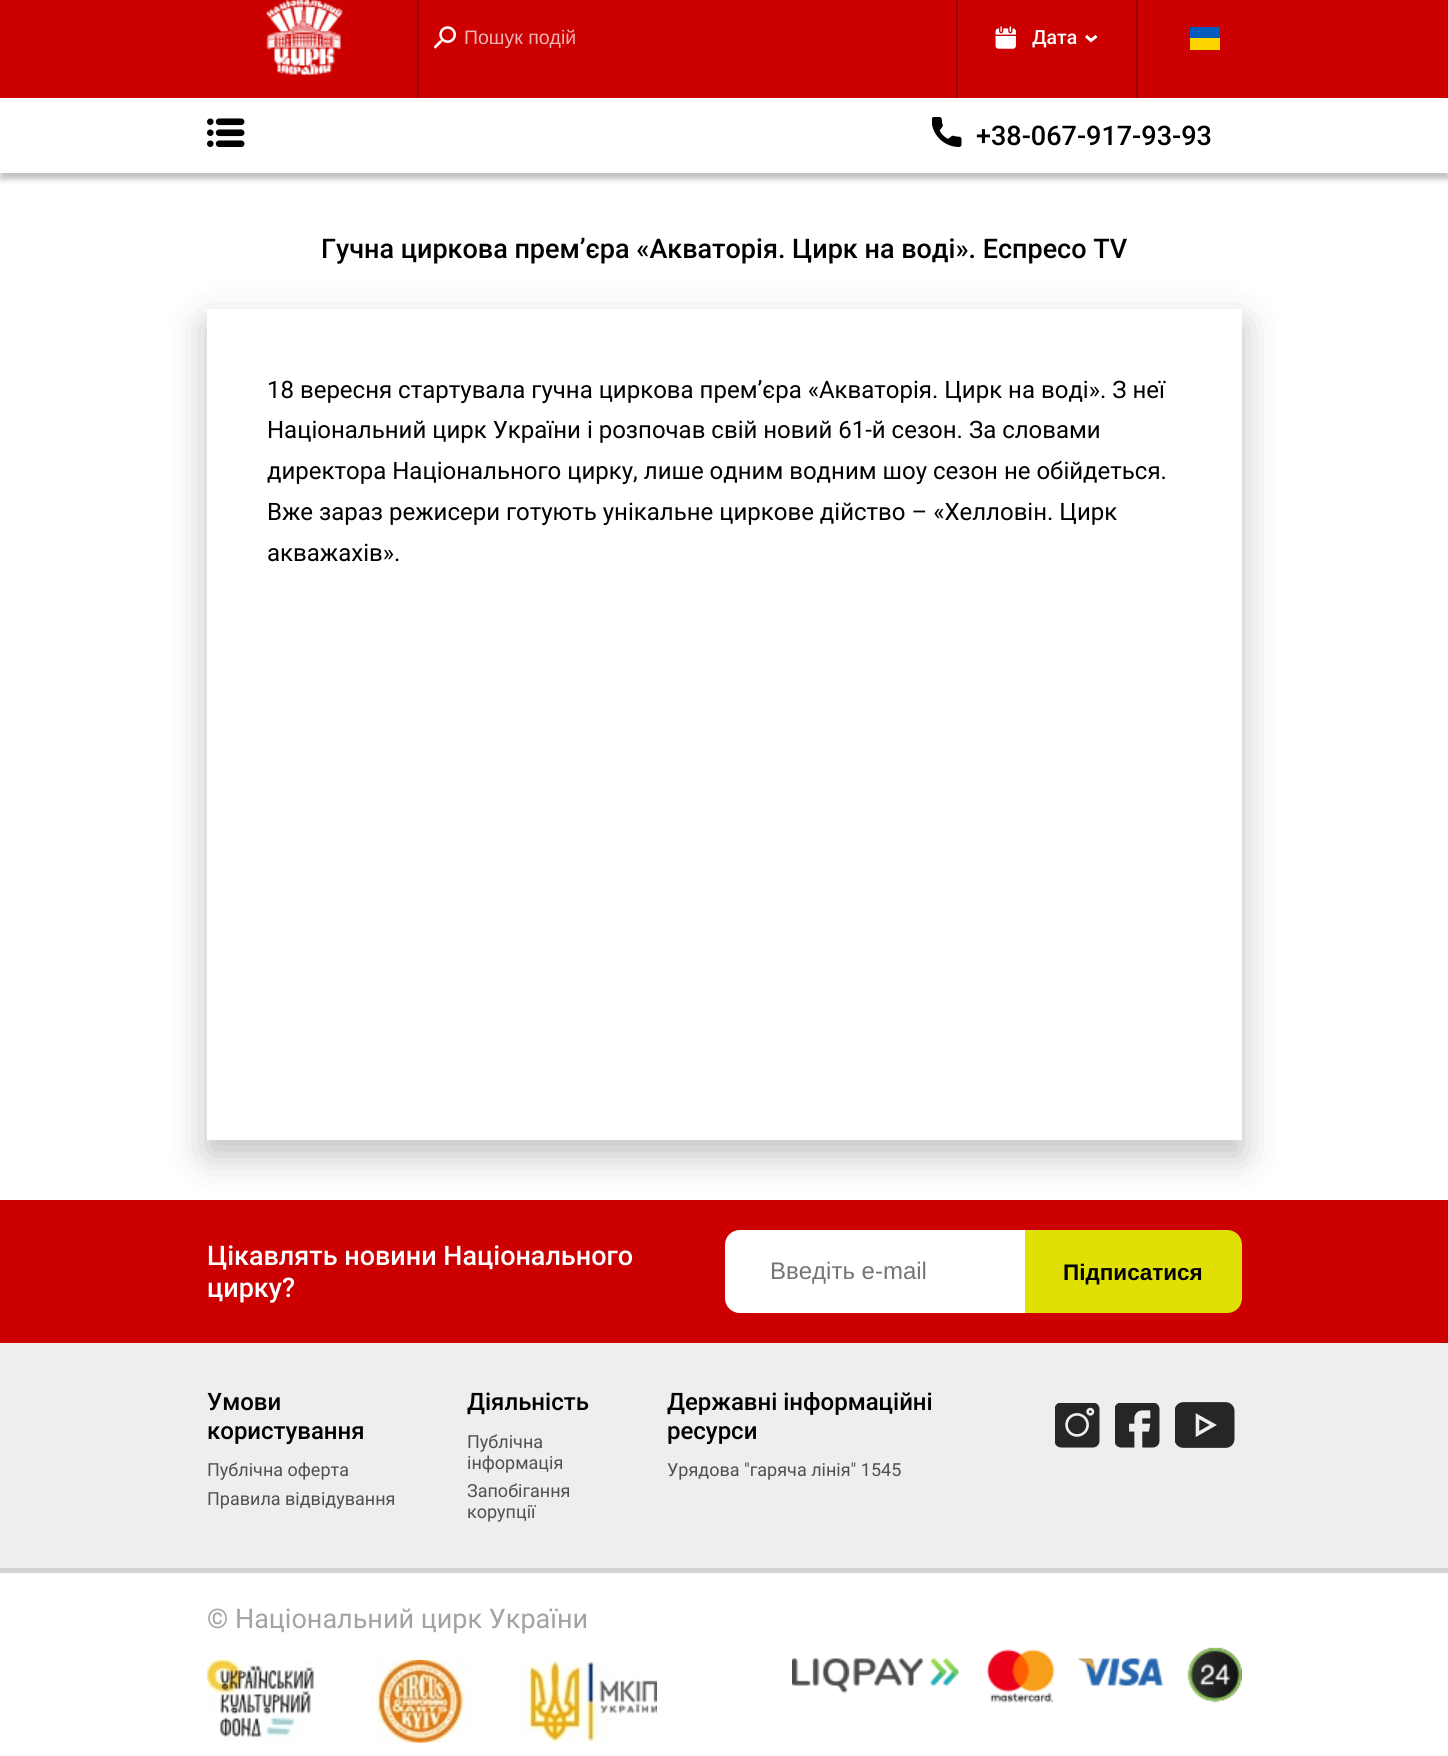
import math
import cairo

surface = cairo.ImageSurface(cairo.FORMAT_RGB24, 1448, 1756)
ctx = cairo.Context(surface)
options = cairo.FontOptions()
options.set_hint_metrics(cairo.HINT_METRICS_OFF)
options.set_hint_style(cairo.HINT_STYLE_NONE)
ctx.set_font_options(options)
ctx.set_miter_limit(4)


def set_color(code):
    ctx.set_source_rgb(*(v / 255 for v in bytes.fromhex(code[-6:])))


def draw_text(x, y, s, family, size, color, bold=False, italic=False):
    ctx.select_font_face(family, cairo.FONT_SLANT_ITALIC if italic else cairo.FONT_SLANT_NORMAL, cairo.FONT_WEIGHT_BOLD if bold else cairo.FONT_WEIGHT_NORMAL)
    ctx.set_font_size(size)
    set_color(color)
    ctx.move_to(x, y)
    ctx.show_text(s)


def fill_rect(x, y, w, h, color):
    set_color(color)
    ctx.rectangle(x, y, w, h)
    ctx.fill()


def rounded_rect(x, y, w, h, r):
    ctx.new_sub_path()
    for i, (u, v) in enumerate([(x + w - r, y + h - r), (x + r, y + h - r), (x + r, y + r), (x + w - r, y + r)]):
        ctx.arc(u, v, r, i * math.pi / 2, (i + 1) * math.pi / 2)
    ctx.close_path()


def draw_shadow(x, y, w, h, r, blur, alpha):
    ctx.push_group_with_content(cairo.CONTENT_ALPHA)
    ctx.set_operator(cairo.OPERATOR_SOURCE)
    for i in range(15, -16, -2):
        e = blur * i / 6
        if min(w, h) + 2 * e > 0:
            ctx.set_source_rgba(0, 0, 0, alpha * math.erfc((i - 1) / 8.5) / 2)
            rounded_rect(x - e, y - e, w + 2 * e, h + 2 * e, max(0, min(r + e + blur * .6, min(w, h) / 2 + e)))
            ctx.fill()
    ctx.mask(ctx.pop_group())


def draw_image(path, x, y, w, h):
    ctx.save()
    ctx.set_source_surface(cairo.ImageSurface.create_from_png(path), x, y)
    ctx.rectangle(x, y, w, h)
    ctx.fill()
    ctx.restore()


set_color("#ffffff")
ctx.paint()
fill_rect(0, 0, 1448, 98, "#cc0000")
fill_rect(417, 0, 2, 98, "#990000")
draw_image("assets/img1.png", 265, 0, 79, 75)
draw_image("assets/img2.png", 434, 26, 22, 23)
draw_text(464, 44, "Пошук подій", "Liberation Sans", 19.5, "#f0b3b3")
fill_rect(956, 0, 2, 98, "#990000")
draw_image("assets/img3.png", 995, 26, 21, 23)
draw_text(1032, 44, "Дата", "Roboto Medium", 19.5, "#ffffff")
ctx.new_path()
ctx.move_to(1086, 36)
ctx.line_to(1091, 40.5)
ctx.line_to(1096.5, 36)
ctx.set_line_width(3)
ctx.stroke()
fill_rect(1136, 0, 2, 98, "#990000")
fill_rect(1190, 38, 30, 12, "#ffd500")
fill_rect(1190, 27, 30, 11, "#005bbb")
set_color("#000000")
draw_shadow(0, 134, 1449, 45, 0, 3, 0.25)
fill_rect(0, 129, 1448, 44, "#ffffff")
draw_image("assets/img4.png", 207, 118, 38, 29)
draw_image("assets/img5.png", 932, 117, 30, 30)
draw_text(976, 145, "+38-067-917-93-93", "Roboto Medium", 27, "#000000")
draw_text(321, 258, "Гучна циркова прем’єра «Акваторія. Цирк на воді». Еспресо TV", "Roboto Medium", 27, "#000000")
ctx.save()
ctx.set_fill_rule(cairo.FILL_RULE_EVEN_ODD)
ctx.new_path()
ctx.move_to(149, 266)
ctx.line_to(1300, 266)
ctx.line_to(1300, 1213)
ctx.line_to(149, 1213)
ctx.close_path()
ctx.move_to(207, 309)
ctx.line_to(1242, 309)
ctx.line_to(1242, 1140)
ctx.line_to(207, 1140)
ctx.close_path()
ctx.clip()
set_color("#000000")
draw_shadow(207, 324, 1035, 831, 0, 19, 0.25)
ctx.restore()
draw_text(267, 398, "18 вересня стартувала гучна циркова прем’єра «Акваторія. Цирк на воді». З неї", "Roboto", 24, "#000000")
draw_text(267, 438, "Національний цирк України і розпочав свій новий 61-й сезон. За словами", "Roboto", 24, "#000000")
draw_text(267, 479, "директора Національного цирку, лише одним водним шоу сезон не обійдеться.", "Roboto", 24, "#000000")
draw_text(267, 520, "Вже зараз режисери готують унікальне циркове дійство – «Хелловін. Цирк", "Roboto", 24, "#000000")
draw_text(267, 561, "акважахів».", "Roboto", 24, "#000000")
fill_rect(0, 1200, 1448, 143, "#cc0000")
draw_text(207, 1265, "Цікавлять новини Національного", "Roboto Medium", 27, "#ffffff")
draw_text(207, 1297, "цирку?", "Roboto Medium", 27, "#ffffff")
ctx.new_path()
ctx.move_to(740, 1230)
ctx.line_to(1025, 1230)
ctx.line_to(1025, 1313)
ctx.line_to(740, 1313)
ctx.curve_to(731.5, 1313, 725, 1306.5, 725, 1298)
ctx.line_to(725, 1245)
ctx.curve_to(725, 1236.5, 731.5, 1230, 740, 1230)
ctx.close_path()
ctx.fill()
draw_text(770, 1279, "Введіть e-mail", "Liberation Sans", 24, "#757575")
set_color("#e0e004")
ctx.new_path()
ctx.move_to(1025, 1230)
ctx.line_to(1227, 1230)
ctx.curve_to(1235.5, 1230, 1242, 1236.5, 1242, 1245)
ctx.line_to(1242, 1298)
ctx.curve_to(1242, 1306.5, 1235.5, 1313, 1227, 1313)
ctx.line_to(1025, 1313)
ctx.close_path()
ctx.fill()
draw_text(1063, 1280, "Підписатися", "Liberation Sans", 22.5, "#000000", bold=True)
fill_rect(0, 1343, 1448, 225, "#eeeeee")
fill_rect(0, 1568, 1448, 5, "#d2d2d2")
draw_text(207, 1410, "Умови", "Roboto Medium", 24, "#000000")
draw_text(207, 1439, "користування", "Roboto Medium", 24, "#000000")
draw_text(207, 1476, "Публічна оферта", "Roboto", 18, "#505050")
draw_text(207, 1505, "Правила відвідування", "Roboto", 18, "#505050")
draw_text(467, 1410, "Діяльність", "Roboto Medium", 24, "#000000")
draw_text(467, 1448, "Публічна", "Roboto", 18, "#505050")
draw_text(467, 1469, "інформація", "Roboto", 18, "#505050")
draw_text(467, 1497, "Запобігання", "Roboto", 18, "#505050")
draw_text(467, 1518, "корупції", "Roboto", 18, "#505050")
draw_text(667, 1410, "Державні інформаційні", "Roboto Medium", 24, "#000000")
draw_text(667, 1439, "ресурси", "Roboto Medium", 24, "#000000")
draw_text(667, 1476, "Урядова \"гаряча лінія\" 1545", "Roboto", 18, "#505050")
draw_image("assets/img6.png", 1055, 1403, 45, 45)
draw_image("assets/img7.png", 1115, 1403, 45, 45)
draw_image("assets/img8.png", 1175, 1402, 60, 46)
draw_text(207, 1628, "© Національний цирк України", "Roboto", 27, "#a3a3a3")
draw_image("assets/img9.png", 207, 1660, 450, 83)
draw_image("assets/img10.png", 792, 1647, 450, 56)
surface.write_to_png("output.png")
